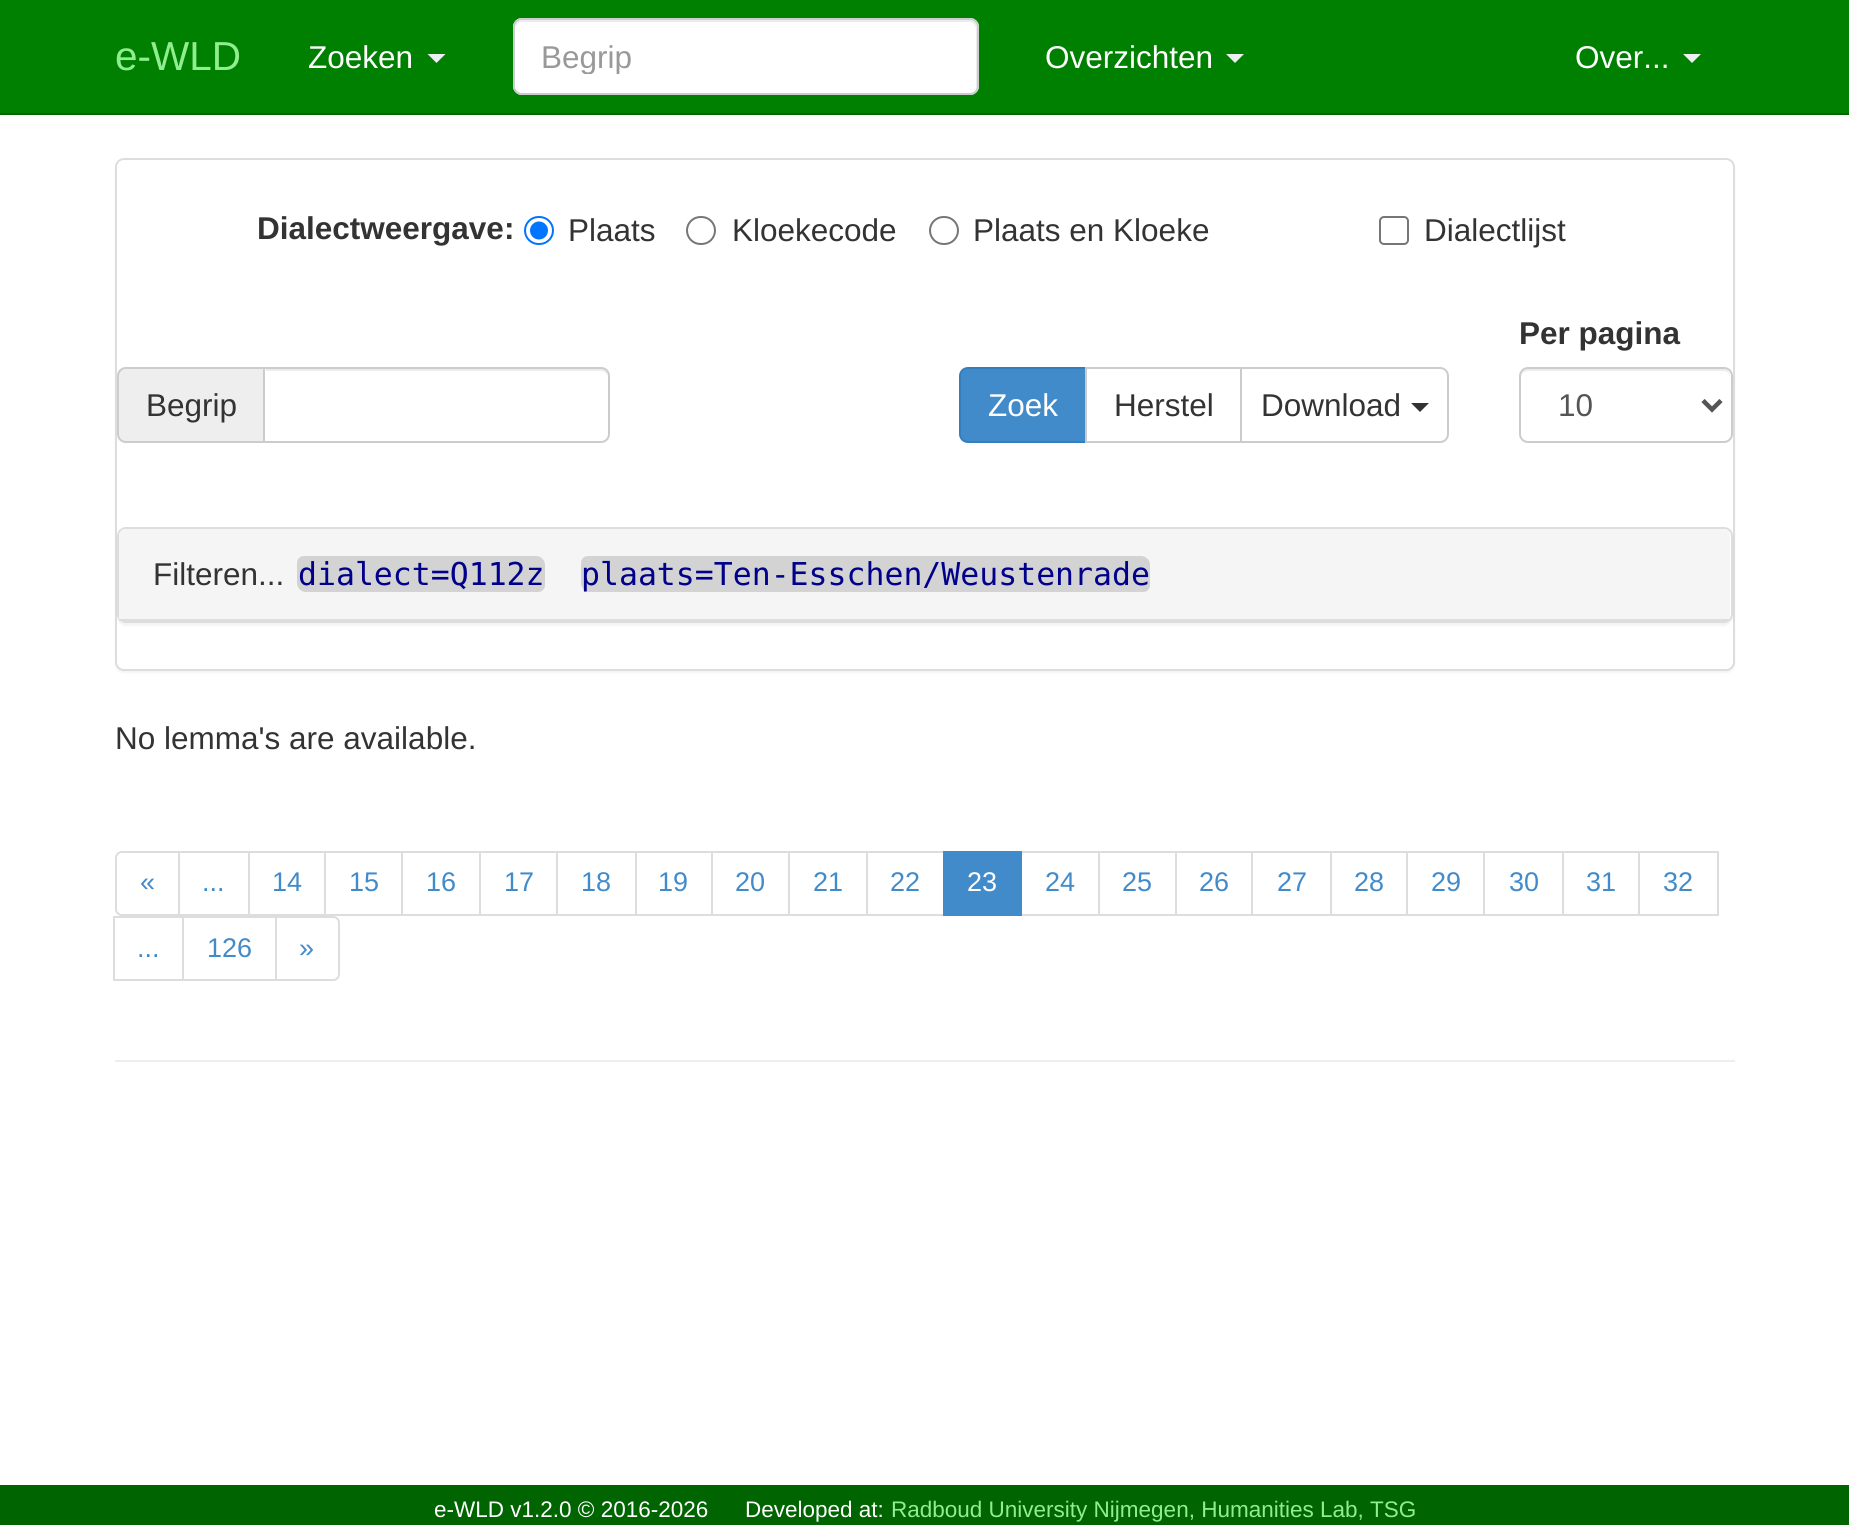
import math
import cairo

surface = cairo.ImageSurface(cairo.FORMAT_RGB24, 1849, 1525)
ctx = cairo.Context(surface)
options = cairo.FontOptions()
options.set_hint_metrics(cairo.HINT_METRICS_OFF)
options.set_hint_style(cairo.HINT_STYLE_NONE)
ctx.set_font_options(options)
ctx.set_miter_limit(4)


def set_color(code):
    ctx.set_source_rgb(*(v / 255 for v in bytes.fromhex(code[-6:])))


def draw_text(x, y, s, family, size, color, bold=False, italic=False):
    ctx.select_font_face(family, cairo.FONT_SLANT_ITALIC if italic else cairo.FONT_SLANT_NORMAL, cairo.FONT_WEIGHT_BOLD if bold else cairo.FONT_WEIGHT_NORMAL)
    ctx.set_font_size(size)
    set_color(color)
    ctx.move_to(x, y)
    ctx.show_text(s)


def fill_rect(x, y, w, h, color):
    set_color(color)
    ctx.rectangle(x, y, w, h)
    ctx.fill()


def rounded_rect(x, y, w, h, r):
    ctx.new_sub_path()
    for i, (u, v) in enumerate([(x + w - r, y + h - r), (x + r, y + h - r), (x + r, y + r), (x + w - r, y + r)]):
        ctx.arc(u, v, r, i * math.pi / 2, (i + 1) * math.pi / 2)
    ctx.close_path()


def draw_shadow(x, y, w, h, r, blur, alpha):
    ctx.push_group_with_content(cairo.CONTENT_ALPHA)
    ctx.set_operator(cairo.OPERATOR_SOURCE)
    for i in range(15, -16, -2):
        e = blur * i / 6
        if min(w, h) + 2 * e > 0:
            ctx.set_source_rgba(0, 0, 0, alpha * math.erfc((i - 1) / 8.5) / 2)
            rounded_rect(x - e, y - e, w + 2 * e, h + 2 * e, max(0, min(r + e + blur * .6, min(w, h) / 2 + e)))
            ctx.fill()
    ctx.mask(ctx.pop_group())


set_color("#ffffff")
ctx.paint()
fill_rect(0, 0, 1849, 113, "#008000")
fill_rect(0, 113, 1849, 2, "#006400")
draw_text(115, 70, "e-WLD", "Liberation Sans", 40.5, "#90ee90")
draw_text(308, 68, "Zoeken", "Liberation Sans", 31.5, "#ffffff")
set_color("#ecf0f1")
ctx.new_path()
ctx.move_to(427.5, 54)
ctx.line_to(445.5, 54)
ctx.line_to(436.5, 63)
ctx.close_path()
ctx.fill()
set_color("#ffffff")
rounded_rect(513, 18, 466, 77, 9)
ctx.fill()
set_color("#ececec")
ctx.new_path()
ctx.move_to(522, 22)
ctx.line_to(970, 22)
ctx.curve_to(973, 22, 976, 26, 976, 29)
ctx.line_to(976, 89)
ctx.curve_to(977, 88, 977, 86, 977, 85)
ctx.line_to(977, 27)
ctx.curve_to(977, 23, 974, 20, 970, 20)
ctx.line_to(522, 20)
ctx.curve_to(518, 20, 515, 23, 515, 27)
ctx.line_to(515, 29)
ctx.curve_to(515, 26, 518, 22, 522, 22)
ctx.close_path()
ctx.fill()
rounded_rect(514, 19, 464, 75, 8)
set_color("#cccccc")
ctx.stroke()
ctx.save()
ctx.rectangle(542, 38, 408, 36)
ctx.clip()
draw_text(541, 68, "Begrip", "Liberation Sans", 31.5, "#999999")
ctx.restore()
draw_text(1045, 68, "Overzichten", "Liberation Sans", 31.5, "#ffffff")
set_color("#ecf0f1")
ctx.new_path()
ctx.move_to(1226, 54)
ctx.line_to(1244, 54)
ctx.line_to(1235, 63)
ctx.close_path()
ctx.fill()
draw_text(1575, 68, "Over...", "Liberation Sans", 31.5, "#ffffff")
set_color("#ecf0f1")
ctx.new_path()
ctx.move_to(1683, 54)
ctx.line_to(1701, 54)
ctx.line_to(1692, 63)
ctx.close_path()
ctx.fill()
set_color("#000000")
draw_shadow(115, 160, 1620, 513, 9, 1, 0.05)
set_color("#ffffff")
rounded_rect(116, 159, 1618, 511, 8)
ctx.fill_preserve()
set_color("#dddddd")
ctx.stroke()
draw_text(257, 239, "Dialectweergave:", "Liberation Sans", 31.5, "#333333", bold=True)
rounded_rect(525, 217, 28, 27, 13.5)
set_color("#0075ff")
ctx.stroke()
ctx.arc(539, 230.5, 9, 0, 2 * math.pi)
ctx.fill()
draw_text(568, 241, "Plaats", "Liberation Sans", 31.5, "#333333")
rounded_rect(687, 217, 28, 27, 13.5)
set_color("#767676")
ctx.stroke()
draw_text(732, 241, "Kloekecode", "Liberation Sans", 31.5, "#333333")
rounded_rect(930, 217, 28, 27, 13.5)
set_color("#767676")
ctx.stroke()
draw_text(973, 241, "Plaats en Kloeke", "Liberation Sans", 31.5, "#333333")
rounded_rect(1380, 217, 28, 27, 4)
set_color("#767676")
ctx.stroke()
draw_text(1424, 241, "Dialectlijst", "Liberation Sans", 31.5, "#333333")
set_color("#eeeeee")
ctx.new_path()
ctx.move_to(126, 367)
ctx.line_to(263, 367)
ctx.line_to(263, 443)
ctx.line_to(126, 443)
ctx.curve_to(121, 443, 117, 439, 117, 434)
ctx.line_to(117, 376)
ctx.curve_to(117, 371, 121, 367, 126, 367)
ctx.close_path()
ctx.fill()
set_color("#cccccc")
ctx.set_fill_rule(cairo.FILL_RULE_EVEN_ODD)
ctx.new_path()
ctx.move_to(126, 367)
ctx.line_to(263, 367)
ctx.line_to(263, 443)
ctx.line_to(126, 443)
ctx.curve_to(121, 443, 117, 439, 117, 434)
ctx.line_to(117, 376)
ctx.curve_to(117, 371, 121, 367, 126, 367)
ctx.close_path()
ctx.move_to(126, 369)
ctx.line_to(263, 369)
ctx.line_to(263, 441)
ctx.line_to(126, 441)
ctx.curve_to(122, 441, 119, 438, 119, 434)
ctx.line_to(119, 376)
ctx.curve_to(119, 372, 122, 369, 126, 369)
ctx.close_path()
ctx.fill()
draw_text(146, 416, "Begrip", "Liberation Sans", 31.5, "#333333")
set_color("#ececec")
ctx.set_fill_rule(cairo.FILL_RULE_WINDING)
ctx.new_path()
ctx.move_to(266, 371)
ctx.line_to(601, 371)
ctx.curve_to(604, 371, 608, 374, 608, 378)
ctx.curve_to(608, 374, 607, 370, 602, 369)
ctx.line_to(266, 369)
ctx.close_path()
ctx.fill()
ctx.new_path()
ctx.move_to(264, 368)
ctx.line_to(601, 368)
ctx.curve_to(605.5, 368, 609, 371.5, 609, 376)
ctx.line_to(609, 434)
ctx.curve_to(609, 438.5, 605.5, 442, 601, 442)
ctx.line_to(264, 442)
ctx.close_path()
set_color("#cccccc")
ctx.stroke()
set_color("#428bca")
ctx.new_path()
ctx.move_to(968, 368)
ctx.line_to(1086, 368)
ctx.line_to(1086, 442)
ctx.line_to(968, 442)
ctx.curve_to(963.5, 442, 960, 438.5, 960, 434)
ctx.line_to(960, 376)
ctx.curve_to(960, 371.5, 963.5, 368, 968, 368)
ctx.close_path()
ctx.fill_preserve()
set_color("#357ebd")
ctx.stroke()
draw_text(988, 416, "Zoek", "Liberation Sans", 31.5, "#ffffff")
ctx.rectangle(1086, 368, 155, 74)
set_color("#cccccc")
ctx.stroke()
draw_text(1114, 416, "Herstel", "Liberation Sans", 31.5, "#333333")
set_color("#ffffff")
ctx.new_path()
ctx.move_to(1241, 368)
ctx.line_to(1440, 368)
ctx.curve_to(1444.5, 368, 1448, 371.5, 1448, 376)
ctx.line_to(1448, 434)
ctx.curve_to(1448, 438.5, 1444.5, 442, 1440, 442)
ctx.line_to(1241, 442)
ctx.close_path()
ctx.fill_preserve()
set_color("#cccccc")
ctx.stroke()
draw_text(1261, 416, "Download", "Liberation Sans", 31.5, "#333333")
ctx.new_path()
ctx.move_to(1411, 403)
ctx.line_to(1429, 403)
ctx.line_to(1420, 412)
ctx.close_path()
ctx.fill()
draw_text(1519, 344, "Per pagina", "Liberation Sans", 31.5, "#333333", bold=True)
set_color("#ececec")
ctx.new_path()
ctx.move_to(1528, 371)
ctx.line_to(1724, 371)
ctx.curve_to(1727, 371, 1730, 374, 1730, 378)
ctx.line_to(1730, 376)
ctx.curve_to(1730, 372, 1727, 369, 1723, 369)
ctx.line_to(1528, 369)
ctx.curve_to(1524, 369, 1521, 372, 1521, 376)
ctx.line_to(1521, 378)
ctx.curve_to(1521, 374, 1524, 371, 1528, 371)
ctx.close_path()
ctx.fill()
rounded_rect(1520, 368, 212, 74, 8)
set_color("#cccccc")
ctx.stroke()
ctx.new_path()
ctx.move_to(1703, 400.5)
ctx.line_to(1712, 409.5)
ctx.line_to(1721, 400.5)
set_color("#555555")
ctx.set_line_width(4.5)
ctx.stroke()
draw_text(1558, 416, "10", "Liberation Sans", 31.5, "#555555")
set_color("#000000")
draw_shadow(117, 529, 1616, 97, 9, 1, 0.05)
set_color("#ffffff")
rounded_rect(118, 528, 1614, 94, 8)
ctx.fill_preserve()
set_color("#dddddd")
ctx.set_line_width(2)
ctx.stroke()
set_color("#f5f5f5")
ctx.new_path()
ctx.move_to(126, 529)
ctx.line_to(1723, 529)
ctx.curve_to(1727, 529, 1730, 532, 1730, 536)
ctx.line_to(1730, 621)
ctx.line_to(119, 621)
ctx.line_to(119, 536)
ctx.curve_to(119, 532, 122, 529, 126, 529)
ctx.close_path()
ctx.fill()
fill_rect(119, 619, 1611, 2, "#dddddd")
draw_text(153, 585, "Filteren...", "Liberation Sans", 31.5, "#333333")
set_color("#d3d3d3")
ctx.new_path()
ctx.move_to(304, 556)
ctx.line_to(536, 556)
ctx.curve_to(541, 556, 545, 560, 545, 565)
ctx.line_to(545, 585)
ctx.curve_to(545, 589, 542, 592, 538, 592)
ctx.line_to(306, 592)
ctx.curve_to(301, 592, 297, 588, 297, 583)
ctx.line_to(297, 563)
ctx.curve_to(297, 559, 300, 556, 304, 556)
ctx.close_path()
ctx.fill()
draw_text(298, 585, "dialect=Q112z", "DejaVu Sans Mono", 31.5, "#00008b")
set_color("#d3d3d3")
ctx.new_path()
ctx.move_to(588, 556)
ctx.line_to(1141, 556)
ctx.curve_to(1146, 556, 1150, 560, 1150, 565)
ctx.line_to(1150, 585)
ctx.curve_to(1150, 589, 1147, 592, 1143, 592)
ctx.line_to(590, 592)
ctx.curve_to(585, 592, 581, 588, 581, 583)
ctx.line_to(581, 563)
ctx.curve_to(581, 559, 584, 556, 588, 556)
ctx.close_path()
ctx.fill()
draw_text(581, 585, "plaats=Ten-Esschen/Weustenrade", "DejaVu Sans Mono", 31.5, "#00008b")
draw_text(115, 749, "No lemma's are available.", "Liberation Sans", 31.5, "#333333")
ctx.new_path()
ctx.move_to(122, 852)
ctx.line_to(179, 852)
ctx.line_to(179, 915)
ctx.line_to(122, 915)
ctx.curve_to(118.5, 915, 116, 912.5, 116, 909)
ctx.line_to(116, 858)
ctx.curve_to(116, 854.5, 118.5, 852, 122, 852)
ctx.close_path()
set_color("#dddddd")
ctx.stroke()
draw_text(140, 891, "«", "Liberation Sans", 27, "#428bca")
ctx.rectangle(179, 852, 70, 63)
set_color("#dddddd")
ctx.stroke()
draw_text(202, 891, "...", "Liberation Sans", 27, "#428bca")
ctx.rectangle(249, 852, 76, 63)
set_color("#dddddd")
ctx.stroke()
draw_text(272, 891, "14", "Liberation Sans", 27, "#428bca")
ctx.rectangle(325, 852, 77, 63)
set_color("#dddddd")
ctx.stroke()
draw_text(349, 891, "15", "Liberation Sans", 27, "#428bca")
ctx.rectangle(402, 852, 79, 63)
set_color("#dddddd")
ctx.stroke()
draw_text(426, 891, "16", "Liberation Sans", 27, "#428bca")
fill_rect(481, 853, 1, 61, "#ffffff")
ctx.rectangle(480, 852, 77, 63)
set_color("#dddddd")
ctx.stroke()
draw_text(504, 891, "17", "Liberation Sans", 27, "#428bca")
ctx.rectangle(557, 852, 79, 63)
set_color("#dddddd")
ctx.stroke()
draw_text(581, 891, "18", "Liberation Sans", 27, "#428bca")
ctx.rectangle(636, 852, 76, 63)
set_color("#dddddd")
ctx.stroke()
draw_text(658, 891, "19", "Liberation Sans", 27, "#428bca")
ctx.rectangle(712, 852, 77, 63)
set_color("#dddddd")
ctx.stroke()
draw_text(735, 891, "20", "Liberation Sans", 27, "#428bca")
ctx.rectangle(789, 852, 79, 63)
set_color("#dddddd")
ctx.stroke()
draw_text(813, 891, "21", "Liberation Sans", 27, "#428bca")
fill_rect(868, 853, 1, 61, "#ffffff")
ctx.rectangle(867, 852, 77, 63)
set_color("#dddddd")
ctx.stroke()
draw_text(890, 891, "22", "Liberation Sans", 27, "#428bca")
ctx.rectangle(1020, 852, 79, 63)
set_color("#dddddd")
ctx.stroke()
fill_rect(943, 851, 79, 65, "#428bca")
draw_text(967, 891, "23", "Liberation Sans", 27, "#ffffff")
draw_text(1045, 891, "24", "Liberation Sans", 27, "#428bca")
ctx.rectangle(1099, 852, 77, 63)
set_color("#dddddd")
ctx.stroke()
draw_text(1122, 891, "25", "Liberation Sans", 27, "#428bca")
ctx.rectangle(1176, 852, 76, 63)
set_color("#dddddd")
ctx.stroke()
draw_text(1199, 891, "26", "Liberation Sans", 27, "#428bca")
ctx.rectangle(1252, 852, 79, 63)
set_color("#dddddd")
ctx.stroke()
draw_text(1277, 891, "27", "Liberation Sans", 27, "#428bca")
ctx.rectangle(1331, 852, 77, 63)
set_color("#dddddd")
ctx.stroke()
draw_text(1354, 891, "28", "Liberation Sans", 27, "#428bca")
fill_rect(1408, 853, 1, 61, "#ffffff")
ctx.rectangle(1407, 852, 77, 63)
set_color("#dddddd")
ctx.stroke()
draw_text(1431, 891, "29", "Liberation Sans", 27, "#428bca")
ctx.rectangle(1484, 852, 79, 63)
set_color("#dddddd")
ctx.stroke()
draw_text(1509, 891, "30", "Liberation Sans", 27, "#428bca")
ctx.rectangle(1563, 852, 76, 63)
set_color("#dddddd")
ctx.stroke()
draw_text(1586, 891, "31", "Liberation Sans", 27, "#428bca")
ctx.rectangle(1639, 852, 79, 63)
set_color("#dddddd")
ctx.stroke()
draw_text(1663, 891, "32", "Liberation Sans", 27, "#428bca")
ctx.rectangle(114, 917, 70, 63)
set_color("#dddddd")
ctx.stroke()
draw_text(137, 957, "...", "Liberation Sans", 27, "#428bca")
fill_rect(184, 918, 1, 61, "#ffffff")
ctx.rectangle(183, 917, 93, 63)
set_color("#dddddd")
ctx.stroke()
draw_text(207, 957, "126", "Liberation Sans", 27, "#428bca")
set_color("#ffffff")
ctx.new_path()
ctx.move_to(276, 917)
ctx.line_to(333, 917)
ctx.curve_to(336.5, 917, 339, 919.5, 339, 923)
ctx.line_to(339, 974)
ctx.curve_to(339, 977.5, 336.5, 980, 333, 980)
ctx.line_to(276, 980)
ctx.close_path()
ctx.fill_preserve()
set_color("#dddddd")
ctx.stroke()
draw_text(299, 957, "»", "Liberation Sans", 27, "#428bca")
fill_rect(115, 1060, 1620, 2, "#eeeeee")
fill_rect(0, 1485, 1849, 40, "#006400")
draw_text(434, 1517, "e-WLD v1.2.0 © 2016-2026", "Liberation Sans", 22.5, "#ffffff")
draw_text(745, 1517, "Developed at:", "Liberation Sans", 22.5, "#ffffff")
draw_text(891, 1517, "Radboud University Nijmegen, Humanities Lab, TSG", "Liberation Sans", 22.5, "#90ee90")
surface.write_to_png("output.png")
